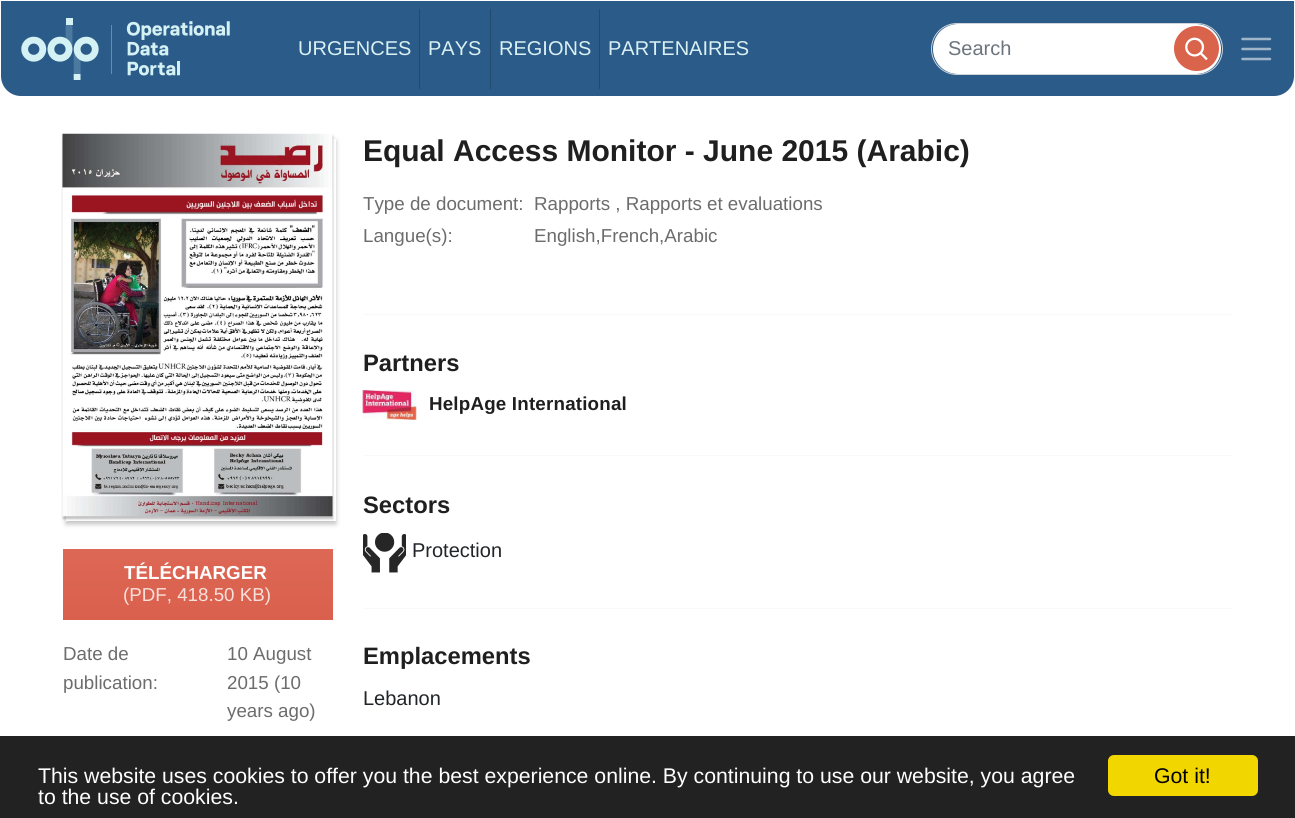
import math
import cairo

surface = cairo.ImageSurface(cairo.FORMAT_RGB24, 1295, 818)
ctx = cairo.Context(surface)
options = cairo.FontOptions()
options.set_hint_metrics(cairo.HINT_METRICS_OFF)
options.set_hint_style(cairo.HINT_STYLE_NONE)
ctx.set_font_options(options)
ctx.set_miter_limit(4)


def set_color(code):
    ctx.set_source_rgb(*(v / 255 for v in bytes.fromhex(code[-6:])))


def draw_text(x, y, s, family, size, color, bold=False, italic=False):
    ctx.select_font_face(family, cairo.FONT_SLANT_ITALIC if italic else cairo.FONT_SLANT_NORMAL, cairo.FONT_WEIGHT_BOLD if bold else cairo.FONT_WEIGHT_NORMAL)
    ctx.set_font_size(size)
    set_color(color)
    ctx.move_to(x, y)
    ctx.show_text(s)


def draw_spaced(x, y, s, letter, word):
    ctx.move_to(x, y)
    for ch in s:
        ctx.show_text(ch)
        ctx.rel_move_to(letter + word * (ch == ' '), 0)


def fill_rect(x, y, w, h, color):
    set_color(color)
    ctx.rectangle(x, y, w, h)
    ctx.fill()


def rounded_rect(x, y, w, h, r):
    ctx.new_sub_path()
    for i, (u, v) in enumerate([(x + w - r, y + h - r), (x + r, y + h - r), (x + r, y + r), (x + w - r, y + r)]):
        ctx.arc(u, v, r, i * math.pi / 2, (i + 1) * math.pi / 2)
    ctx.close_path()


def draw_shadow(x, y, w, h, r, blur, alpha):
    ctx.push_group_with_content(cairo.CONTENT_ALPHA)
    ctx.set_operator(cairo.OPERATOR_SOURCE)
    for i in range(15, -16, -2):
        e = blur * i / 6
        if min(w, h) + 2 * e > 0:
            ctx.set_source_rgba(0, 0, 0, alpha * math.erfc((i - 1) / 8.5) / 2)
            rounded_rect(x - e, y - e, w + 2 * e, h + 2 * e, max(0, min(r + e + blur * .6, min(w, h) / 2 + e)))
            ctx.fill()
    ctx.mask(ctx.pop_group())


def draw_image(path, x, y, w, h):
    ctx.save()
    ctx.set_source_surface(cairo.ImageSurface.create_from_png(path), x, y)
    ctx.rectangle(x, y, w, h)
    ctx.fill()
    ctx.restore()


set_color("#ffffff")
ctx.paint()
set_color("#2a5b89")
ctx.new_path()
ctx.move_to(3, 3)
ctx.line_to(1292, 3)
ctx.line_to(1292, 76)
ctx.curve_to(1292, 86, 1284, 94, 1274, 94)
ctx.line_to(21, 94)
ctx.curve_to(11, 94, 3, 86, 3, 76)
ctx.close_path()
ctx.fill_preserve()
ctx.set_line_width(4)
ctx.stroke()
draw_image("assets/img1.png", 21, 18, 209, 62)
draw_text(298, 55, "URGENCES", "Liberation Sans", 20, "#daf0f3")
fill_rect(419, 9, 1, 80, "#22496e")
draw_text(428, 55, "PAYS", "Liberation Sans", 20, "#daf0f3")
fill_rect(490, 9, 1, 80, "#22496e")
draw_text(499, 55, "REGIONS", "Liberation Sans", 20, "#daf0f3")
fill_rect(599, 9, 1, 80, "#22496e")
draw_text(608, 55, "PARTENAIRES", "Liberation Sans", 20, "#daf0f3")
set_color("#ffffff")
rounded_rect(933, 24, 288, 50, 25)
ctx.fill()
rounded_rect(931.5, 23.5, 291, 51, 25.5)
set_color("#ced4da")
ctx.set_line_width(1)
ctx.stroke()
draw_text(948, 55, "Search", "Liberation Sans", 20, "#6c757d")
set_color("#da634b")
ctx.new_path()
ctx.arc(1196.5, 48.5, 22.5, 0, 2 * math.pi)
ctx.fill()
draw_image("assets/img2.png", 1185, 37, 23, 24)
ctx.new_path()
ctx.move_to(1242.5, 39)
ctx.line_to(1270, 39)
ctx.move_to(1242.5, 49)
ctx.line_to(1270, 49)
ctx.move_to(1242.5, 59)
ctx.line_to(1270, 59)
set_color("#9fb5ca")
ctx.set_line_width(2.5)
ctx.set_line_cap(cairo.LINE_CAP_ROUND)
ctx.stroke()
set_color("#000000")
draw_shadow(66, 141, 270, 383, 0, 2.5, 0.25)
fill_rect(66, 139, 270, 382, "#ffffff")
set_color("#000000")
draw_shadow(63, 136, 270, 383, 0, 1, 0.25)
draw_image("assets/img3.png", 62, 133, 271, 384)
gradient = cairo.LinearGradient(198, 549, 198, 620)
gradient.add_color_stop_rgba(0, 0.863, 0.408, 0.333, 1)
gradient.add_color_stop_rgba(1, 0.855, 0.376, 0.302, 1)
ctx.set_source(gradient)
ctx.rectangle(63, 549, 270, 71)
ctx.fill()
draw_text(124, 579, "TÉLÉCHARGER", "Liberation Sans", 18.75, "#ffffff", bold=True)
draw_text(123, 601, "(PDF, 418.50 KB)", "Liberation Sans", 18.75, "#f8e0dc")
draw_text(63, 660, "Date de", "Liberation Sans", 18.75, "#6c6c6c")
draw_text(63, 689, "publication:", "Liberation Sans", 18.75, "#6c6c6c")
draw_text(227, 660, "10 August", "Liberation Sans", 18.75, "#6c6c6c")
draw_text(227, 689, "2015 (10", "Liberation Sans", 18.75, "#6c6c6c")
draw_text(227, 717, "years ago)", "Liberation Sans", 18.75, "#6c6c6c")
draw_text(363, 161, "Equal Access Monitor - June 2015 (Arabic)", "Liberation Sans", 30, "#1f1f1f", bold=True)
draw_text(363, 210, "Type de document:", "Liberation Sans", 18.75, "#6c6c6c")
draw_text(534, 210, "Rapports , Rapports et evaluations", "Liberation Sans", 18.75, "#6c6c6c")
draw_text(363, 242, "Langue(s):", "Liberation Sans", 18.75, "#6c6c6c")
draw_text(534, 242, "English,French,Arabic", "Liberation Sans", 18.75, "#6c6c6c")
fill_rect(363, 314, 870, 1, "#f9f9f9")
draw_text(363, 371, "Partners", "Liberation Sans", 23.75, "#1f1f1f", bold=True)
draw_image("assets/img4.png", 362, 390, 55, 30)
ctx.set_font_size(18.75)
draw_spaced(429, 410, "HelpAge International", 0.2, 0)
fill_rect(363, 455, 870, 1, "#f9f9f9")
draw_text(363, 513, "Sectors", "Liberation Sans", 23.75, "#1f1f1f", bold=True)
draw_image("assets/img5.png", 363, 533, 43, 40)
draw_text(412, 557, "Protection", "Liberation Sans", 20, "#212529")
fill_rect(363, 608, 870, 1, "#f9f9f9")
draw_text(363, 664, "Emplacements", "Liberation Sans", 23.75, "#1f1f1f", bold=True)
draw_text(363, 705, "Lebanon", "Liberation Sans", 20, "#212529")
fill_rect(0, 736, 1295, 82, "#222222")
draw_text(38, 783, "This website uses cookies to offer you the best experience online. By continuing to use our website, you agree", "Liberation Sans", 21.25, "#ffffff")
draw_text(38, 804, "to the use of cookies.", "Liberation Sans", 21.25, "#ffffff")
set_color("#f1d600")
rounded_rect(1108, 755, 150, 41, 6)
ctx.fill()
draw_text(1154, 783, "Got it!", "Liberation Sans", 21.25, "#000000")
surface.write_to_png("output.png")
